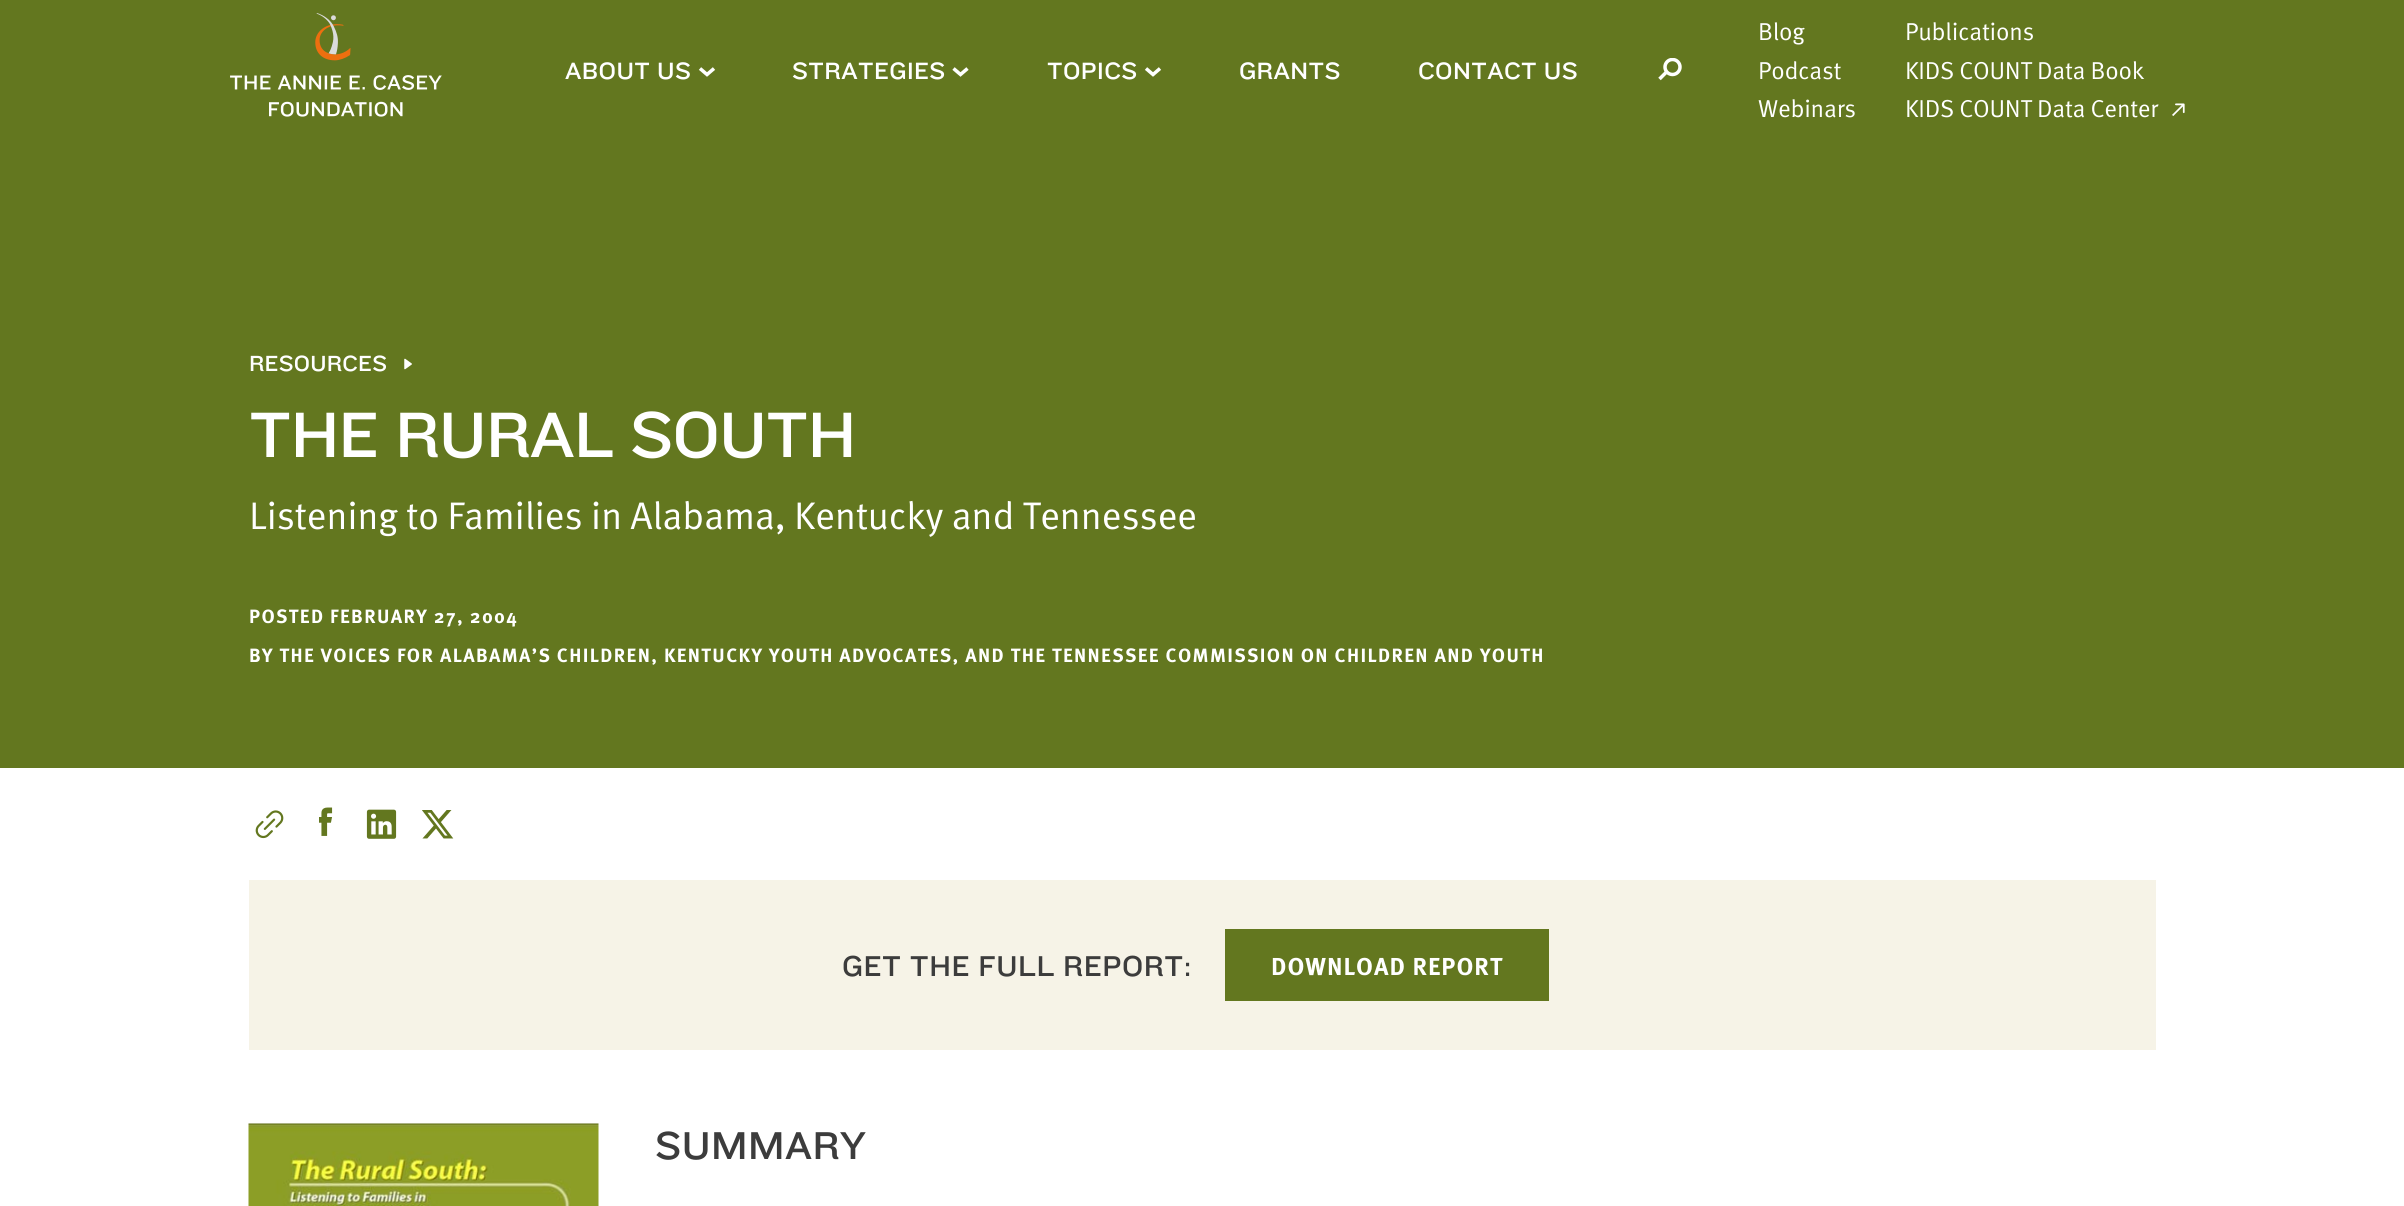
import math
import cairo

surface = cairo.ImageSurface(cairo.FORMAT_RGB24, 2404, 1206)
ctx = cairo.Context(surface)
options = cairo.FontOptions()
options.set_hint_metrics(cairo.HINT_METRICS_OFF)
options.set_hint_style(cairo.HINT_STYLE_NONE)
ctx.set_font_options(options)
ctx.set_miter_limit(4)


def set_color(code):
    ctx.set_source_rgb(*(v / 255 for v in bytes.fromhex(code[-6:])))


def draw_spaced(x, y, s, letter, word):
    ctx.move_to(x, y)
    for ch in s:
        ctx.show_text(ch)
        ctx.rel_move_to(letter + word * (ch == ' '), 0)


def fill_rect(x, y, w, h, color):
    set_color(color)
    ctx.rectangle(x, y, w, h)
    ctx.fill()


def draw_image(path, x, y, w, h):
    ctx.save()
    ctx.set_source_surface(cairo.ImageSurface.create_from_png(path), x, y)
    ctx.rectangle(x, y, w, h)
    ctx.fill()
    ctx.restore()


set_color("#ffffff")
ctx.paint()
fill_rect(0, 0, 2404, 768, "#63771f")
draw_image("assets/img1.png", 230, 13, 212, 104)
ctx.select_font_face("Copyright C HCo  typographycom")
ctx.set_font_size(24.5)
set_color("#ffffff")
draw_spaced(565, 79, "ABOUT US", 0.4, 0)
ctx.new_path()
ctx.move_to(714, 68.5)
ctx.line_to(707, 74.5)
ctx.line_to(700, 68.5)
ctx.set_line_width(3.5)
ctx.stroke()
draw_spaced(792, 79, "STRATEGIES", 0.4, 0)
ctx.new_path()
ctx.move_to(967.5, 68.5)
ctx.line_to(960.5, 74.5)
ctx.line_to(953.5, 68.5)
ctx.stroke()
draw_spaced(1047, 79, "TOPICS", 0.4, 0)
ctx.new_path()
ctx.move_to(1160, 68.5)
ctx.line_to(1153, 74.5)
ctx.line_to(1146, 68.5)
ctx.stroke()
draw_spaced(1239, 79, "GRANTS", 0.4, 0)
draw_spaced(1418, 79, "CONTACT US", 0.4, 0)
ctx.save()
ctx.rectangle(1657, 58, 25, 23)
ctx.clip()
ctx.arc(1672.5, 67, 7.5, 0, 2 * math.pi)
ctx.stroke()
ctx.restore()
ctx.new_path()
ctx.move_to(1659.5, 79)
ctx.line_to(1666, 72.5)
ctx.stroke()
ctx.select_font_face("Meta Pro")
draw_spaced(1758, 40, "Blog", -0.25, 0)
draw_spaced(1758, 79, "Podcast", -0.25, 0)
draw_spaced(1758, 117, "Webinars", -0.25, 0)
draw_spaced(1905, 40, "Publications", -0.25, 0)
draw_spaced(1905, 79, "KIDS COUNT Data Book", -0.25, 0)
draw_spaced(1905, 117, "KIDS COUNT Data Center", -0.25, 0)
draw_image("assets/img2.png", 2172, 103, 13, 13)
ctx.select_font_face("Copyright C HCo  typographycom")
ctx.set_font_size(22.75)
draw_spaced(249, 371, "RESOURCES", 0.25, 0)
draw_image("assets/img3.png", 404, 358, 8, 12)
ctx.set_font_size(66.5)
draw_spaced(249, 457, "THE RURAL SOUTH", -0.7, 0)
ctx.select_font_face("Meta Pro")
ctx.set_font_size(38.5)
draw_spaced(249, 529, "Listening to Families in Alabama, Kentucky and Tennessee", -0.4, 0)
ctx.select_font_face("Meta Pro", cairo.FONT_SLANT_NORMAL, cairo.FONT_WEIGHT_BOLD)
ctx.set_font_size(19.25)
draw_spaced(249, 623, "POSTED FEBRUARY 27, 2004", 1.35, 0)
draw_spaced(249, 662, "BY THE VOICES FOR ALABAMA’S CHILDREN, KENTUCKY YOUTH ADVOCATES, AND THE TENNESSEE COMMISSION ON CHILDREN AND YOUTH", 1.35, 0)
draw_image("assets/img4.png", 255, 810, 29, 29)
draw_image("assets/img5.png", 319, 807, 14, 29)
draw_image("assets/img6.png", 366, 809, 31, 30)
draw_image("assets/img7.png", 422, 810, 32, 29)
fill_rect(249, 880, 1907, 170, "#f6f3e7")
ctx.select_font_face("Copyright C HCo  typographycom")
ctx.set_font_size(29.75)
set_color("#3c3c3c")
draw_spaced(842, 976, "GET THE FULL REPORT:", 0.5, 0)
set_color("#63771f")
ctx.rectangle(1227, 931, 320, 68)
ctx.fill_preserve()
ctx.set_line_width(4)
ctx.stroke()
ctx.select_font_face("Meta Pro", cairo.FONT_SLANT_NORMAL, cairo.FONT_WEIGHT_BOLD)
ctx.set_font_size(24.5)
set_color("#ffffff")
draw_spaced(1271, 975, "DOWNLOAD REPORT", 1, 0)
draw_image("assets/img8.png", 248, 1123, 351, 83)
ctx.select_font_face("Copyright C HCo  typographycom")
ctx.set_font_size(40.25)
set_color("#3c3c3c")
draw_spaced(655, 1159, "SUMMARY", 0.5, 0)
surface.write_to_png("output.png")
